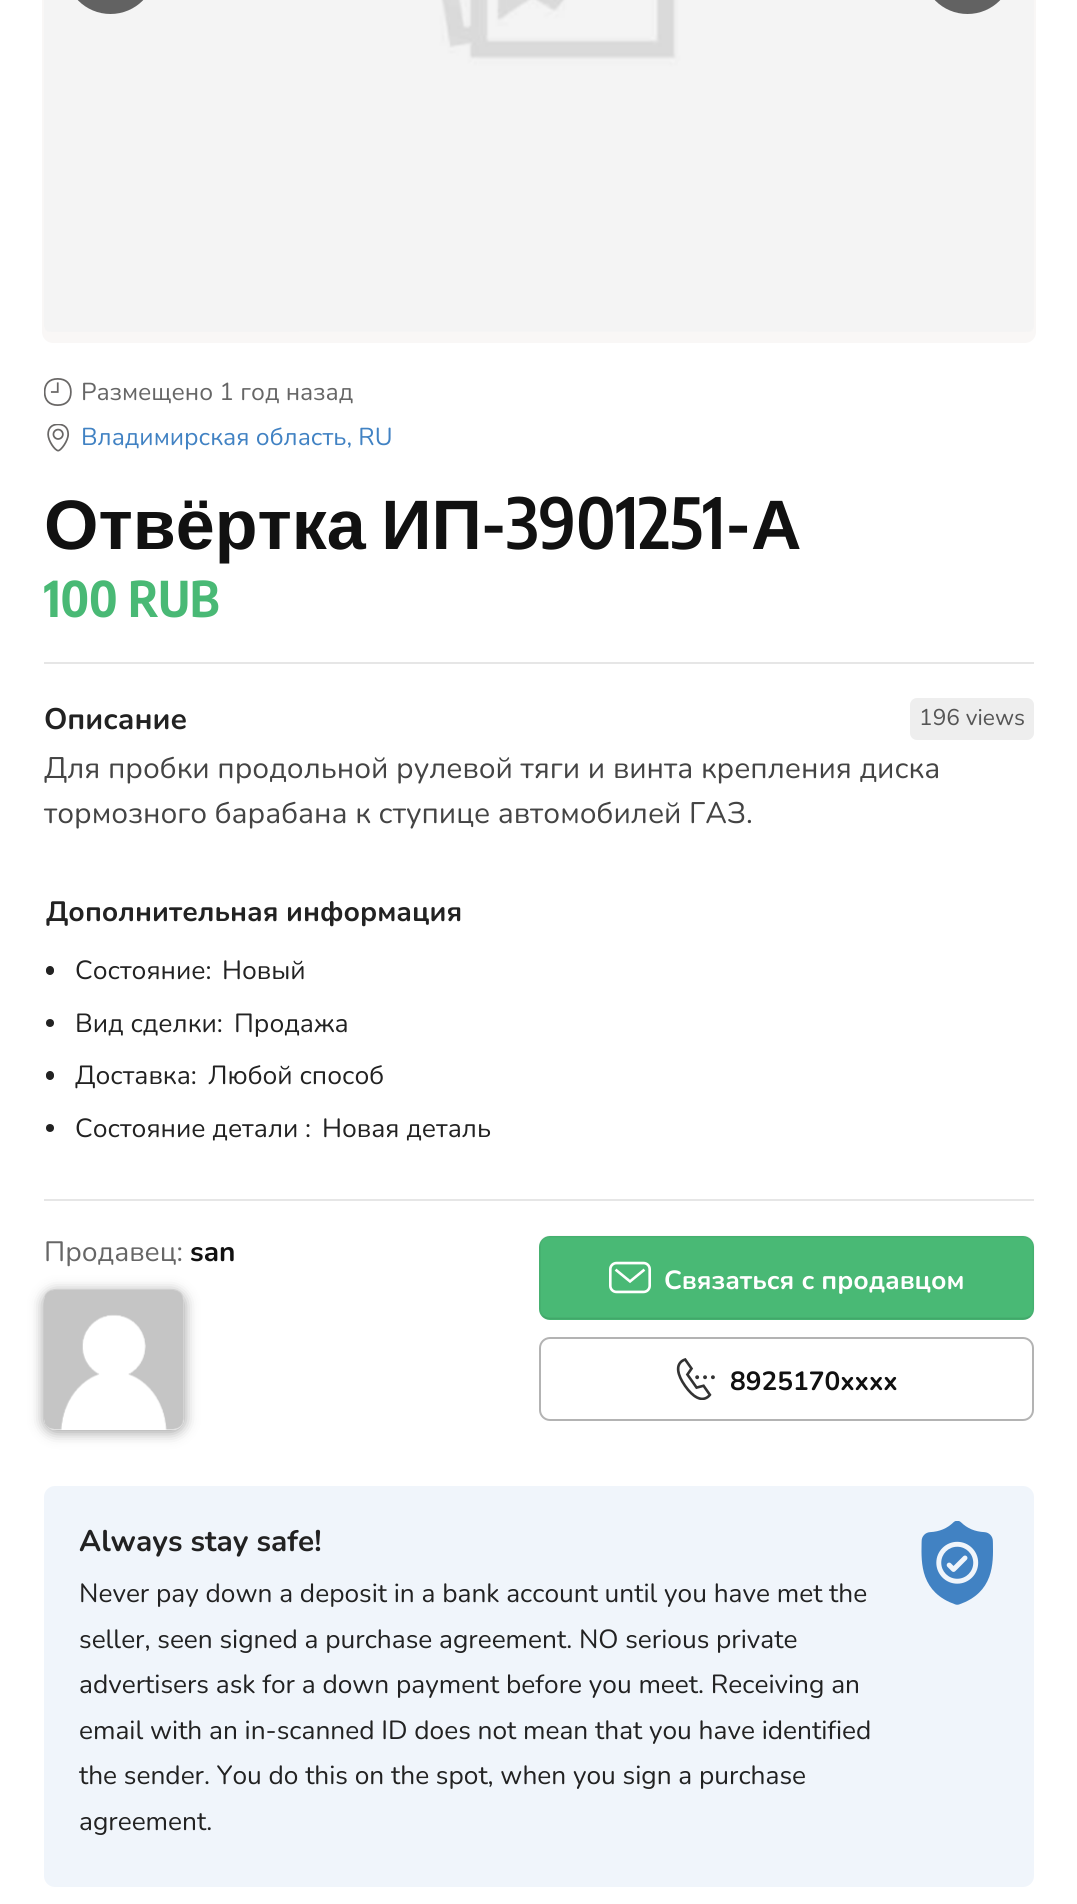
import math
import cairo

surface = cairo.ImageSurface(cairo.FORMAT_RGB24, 1077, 1904)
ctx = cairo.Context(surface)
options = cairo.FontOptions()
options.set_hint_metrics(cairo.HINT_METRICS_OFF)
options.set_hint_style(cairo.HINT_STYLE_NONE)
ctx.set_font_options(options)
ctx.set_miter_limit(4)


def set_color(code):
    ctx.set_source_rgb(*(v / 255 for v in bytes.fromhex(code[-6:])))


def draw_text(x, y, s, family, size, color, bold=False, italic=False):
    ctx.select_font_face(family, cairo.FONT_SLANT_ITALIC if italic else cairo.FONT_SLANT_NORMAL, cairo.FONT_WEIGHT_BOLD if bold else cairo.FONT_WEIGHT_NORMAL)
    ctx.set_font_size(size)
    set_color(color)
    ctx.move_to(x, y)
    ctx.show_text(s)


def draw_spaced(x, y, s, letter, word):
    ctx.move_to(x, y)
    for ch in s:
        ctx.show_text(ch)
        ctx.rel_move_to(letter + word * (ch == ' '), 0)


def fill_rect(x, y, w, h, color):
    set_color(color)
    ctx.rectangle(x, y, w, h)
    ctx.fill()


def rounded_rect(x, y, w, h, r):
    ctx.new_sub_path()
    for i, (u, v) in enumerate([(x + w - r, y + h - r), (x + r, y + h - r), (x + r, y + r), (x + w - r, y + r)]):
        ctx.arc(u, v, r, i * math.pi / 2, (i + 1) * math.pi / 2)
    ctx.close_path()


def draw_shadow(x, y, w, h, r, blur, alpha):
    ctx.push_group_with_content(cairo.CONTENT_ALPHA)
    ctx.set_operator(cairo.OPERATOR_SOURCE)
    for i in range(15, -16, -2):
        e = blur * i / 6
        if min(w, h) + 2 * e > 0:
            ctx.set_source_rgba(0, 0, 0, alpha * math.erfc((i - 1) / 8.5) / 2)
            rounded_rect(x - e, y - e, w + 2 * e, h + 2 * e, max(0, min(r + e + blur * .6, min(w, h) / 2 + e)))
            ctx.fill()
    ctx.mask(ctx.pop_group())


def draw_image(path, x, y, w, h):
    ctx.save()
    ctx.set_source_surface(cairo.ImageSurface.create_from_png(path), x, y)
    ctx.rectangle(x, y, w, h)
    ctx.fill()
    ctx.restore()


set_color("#ffffff")
ctx.paint()
set_color("#f9f7f6")
rounded_rect(42, -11, 994, 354, 11)
ctx.fill()
draw_image("assets/img1.png", 44, 0, 990, 332)
set_color("#626262")
rounded_rect(65, -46, 91, 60, 45.5)
ctx.fill()
rounded_rect(922, -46, 91, 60, 45.5)
ctx.fill()
draw_image("assets/img2.png", 44, 378, 28, 28)
draw_text(81, 400, "Размещено 1 год назад", "Nunito", 24.5, "#666666")
draw_image("assets/img3.png", 47, 424, 23, 28)
draw_text(81, 445, "Владимирская область, RU", "Nunito", 24.5, "#4182c3")
fill_rect(44, 662, 990, 2, "#e6e6e6")
ctx.select_font_face("Liberation Sans", cairo.FONT_SLANT_NORMAL, cairo.FONT_WEIGHT_BOLD)
ctx.set_font_size(70)
set_color("#111111")
draw_spaced(44, 549, "Отвёртка ИП", 0, -4)
draw_text(481, 549, "-3901251-", "Encode Sans Condensed SemiBold", 70, "#111111")
draw_text(751, 549, "А", "Liberation Sans", 70, "#111111", bold=True)
draw_text(44, 617, "100 RUB", "Encode Sans Condensed", 49, "#49b975", bold=True)
draw_text(44, 729, "Описание", "Nunito", 29.75, "#222222", bold=True)
set_color("#eeeeee")
rounded_rect(910, 698, 124, 42, 7)
ctx.fill()
draw_text(919, 725, "196 views", "Nunito", 22.75, "#555555")
draw_text(44, 778, "Для пробки продольной рулевой тяги и винта крепления диска", "Nunito", 29.75, "#444444")
draw_text(44, 823, "тормозного барабана к ступице автомобилей ГАЗ.", "Nunito", 29.75, "#444444")
draw_text(46, 921, "Дополнительная информация", "Nunito", 28, "#222222", bold=True)
rounded_rect(46, 966, 8, 9, 4)
ctx.fill()
draw_text(75, 979, "Состояние:", "Nunito", 26.25, "#222222")
draw_text(222, 979, "Новый", "Nunito", 26.25, "#222222")
ctx.new_path()
ctx.arc(50, 1023, 4, 0, 2 * math.pi)
ctx.fill()
draw_text(75, 1032, "Вид сделки:", "Nunito", 26.25, "#222222")
draw_text(234, 1032, "Продажа", "Nunito", 26.25, "#222222")
rounded_rect(46, 1071, 8, 9, 4)
ctx.fill()
draw_text(75, 1084, "Доставка:", "Nunito", 26.25, "#222222")
draw_text(208, 1084, "Любой способ", "Nunito", 26.25, "#222222")
ctx.new_path()
ctx.arc(50, 1128, 4, 0, 2 * math.pi)
ctx.fill()
draw_text(75, 1137, "Состояние детали :", "Nunito", 26.25, "#222222")
draw_text(322, 1137, "Новая деталь", "Nunito", 26.25, "#222222")
fill_rect(44, 1199, 990, 2, "#e6e6e6")
draw_text(44, 1261, "Продавец:", "Nunito", 28, "#666666")
draw_text(190, 1261, "san", "Nunito", 28, "#111111", bold=True)
set_color("#000000")
draw_shadow(44, 1292, 140, 140, 11, 7, 0.4)
set_color("#ffffff")
rounded_rect(44, 1290, 140, 140, 11)
ctx.fill()
draw_image("assets/img4.png", 43, 1289, 141, 141)
set_color("#49b975")
rounded_rect(539, 1236, 495, 84, 11)
ctx.fill()
ctx.new_path()
ctx.move_to(1030.5, 1316)
ctx.curve_to(1029, 1317.5, 1026.5, 1318.5, 1024, 1318.5)
ctx.line_to(549.5, 1318.5)
ctx.curve_to(547, 1318.5, 544.5, 1317.5, 542.5, 1316)
ctx.set_source_rgba(0, 0, 0, 0.1)
ctx.set_line_width(1.8)
ctx.stroke()
ctx.new_path()
ctx.move_to(542.5, 1316)
ctx.curve_to(541, 1314, 540, 1311.5, 540, 1309)
ctx.line_to(540, 1246)
ctx.curve_to(540, 1243.5, 541, 1241, 542.5, 1239)
ctx.curve_to(544.5, 1237.5, 547, 1236.5, 549.5, 1236.5)
ctx.line_to(1024, 1236.5)
ctx.curve_to(1026.5, 1236.5, 1029, 1237.5, 1030.5, 1239)
ctx.curve_to(1032.5, 1241, 1033.5, 1243.5, 1033.5, 1246)
ctx.line_to(1033.5, 1309)
ctx.curve_to(1033.5, 1311.5, 1032.5, 1314, 1030.5, 1316)
ctx.set_source_rgba(0, 0, 0, 0.05)
ctx.stroke()
draw_image("assets/img5.png", 609, 1261, 42, 33)
draw_text(664, 1289, "Связаться с продавцом", "Nunito", 26.25, "#ffffff", bold=True)
rounded_rect(540, 1338, 493, 82, 10)
set_color("#b3b3b3")
ctx.set_line_width(2)
ctx.stroke()
draw_image("assets/img6.png", 676, 1358, 39, 42)
draw_text(730, 1390, "8925170xxxx", "Nunito", 26.25, "#111111", bold=True)
set_color("#f0f5fb")
rounded_rect(44, 1486, 990, 401, 11)
ctx.fill()
draw_text(79, 1551, "Always stay safe!", "Nunito", 29.75, "#222222", bold=True)
draw_image("assets/img7.png", 921, 1521, 72, 84)
draw_text(79, 1602, "Never pay down a deposit in a bank account until you have met the", "Nunito", 26.25, "#222222")
draw_text(79, 1648, "seller, seen signed a purchase agreement. NO serious private", "Nunito", 26.25, "#222222")
draw_text(79, 1693, "advertisers ask for a down payment before you meet. Receiving an", "Nunito", 26.25, "#222222")
draw_text(79, 1739, "email with an in-scanned ID does not mean that you have identified", "Nunito", 26.25, "#222222")
draw_text(79, 1784, "the sender. You do this on the spot, when you sign a purchase", "Nunito", 26.25, "#222222")
draw_text(79, 1830, "agreement.", "Nunito", 26.25, "#222222")
surface.write_to_png("output.png")
